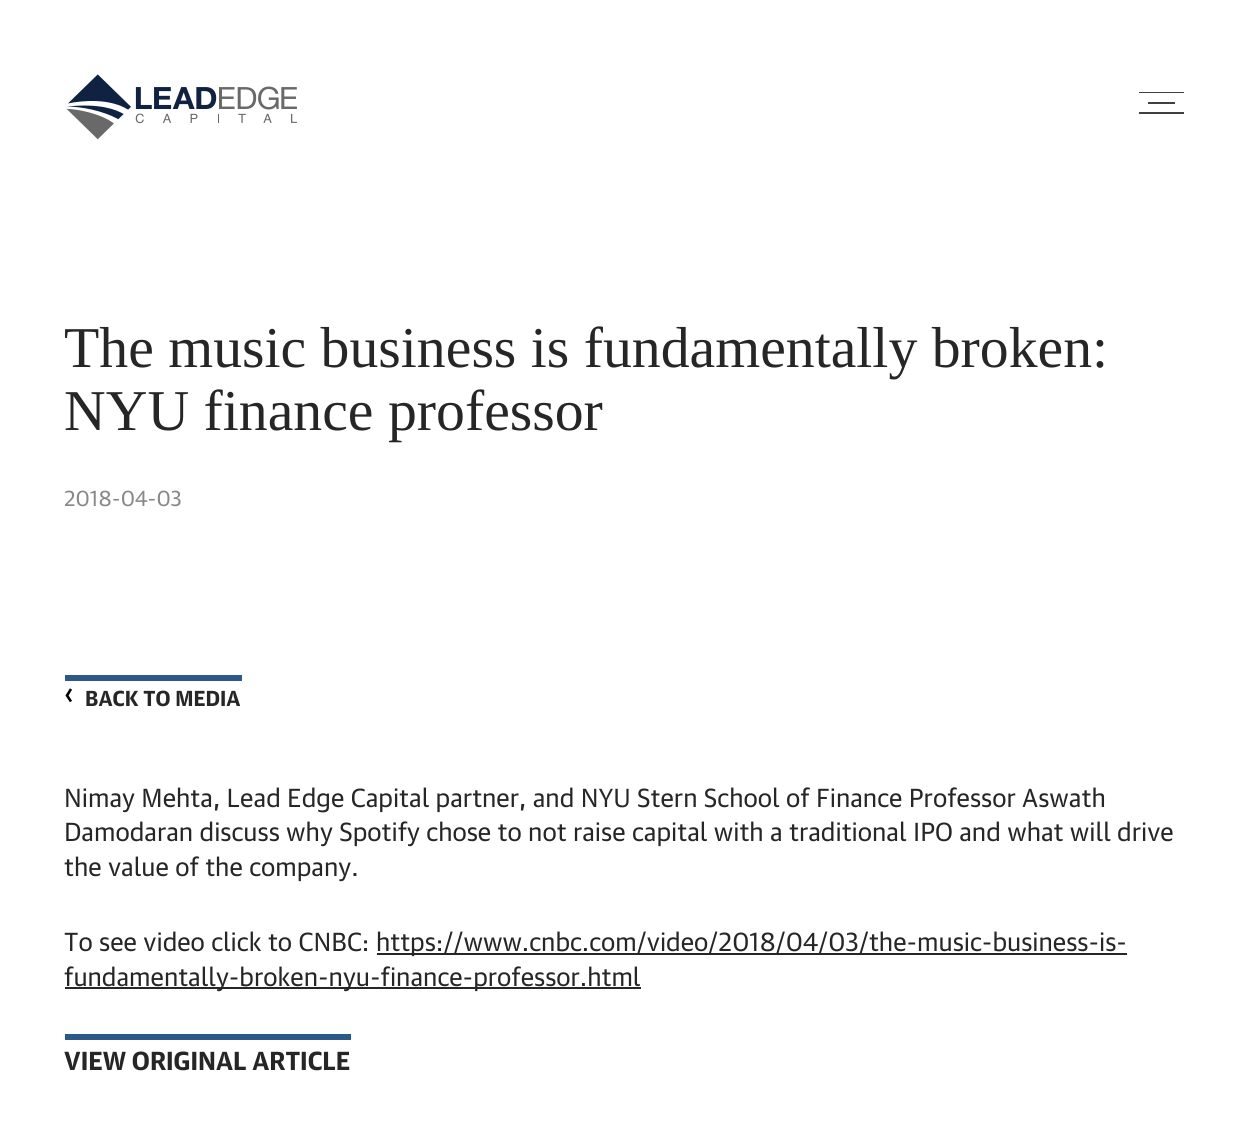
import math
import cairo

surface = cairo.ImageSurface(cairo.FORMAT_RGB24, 1248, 1128)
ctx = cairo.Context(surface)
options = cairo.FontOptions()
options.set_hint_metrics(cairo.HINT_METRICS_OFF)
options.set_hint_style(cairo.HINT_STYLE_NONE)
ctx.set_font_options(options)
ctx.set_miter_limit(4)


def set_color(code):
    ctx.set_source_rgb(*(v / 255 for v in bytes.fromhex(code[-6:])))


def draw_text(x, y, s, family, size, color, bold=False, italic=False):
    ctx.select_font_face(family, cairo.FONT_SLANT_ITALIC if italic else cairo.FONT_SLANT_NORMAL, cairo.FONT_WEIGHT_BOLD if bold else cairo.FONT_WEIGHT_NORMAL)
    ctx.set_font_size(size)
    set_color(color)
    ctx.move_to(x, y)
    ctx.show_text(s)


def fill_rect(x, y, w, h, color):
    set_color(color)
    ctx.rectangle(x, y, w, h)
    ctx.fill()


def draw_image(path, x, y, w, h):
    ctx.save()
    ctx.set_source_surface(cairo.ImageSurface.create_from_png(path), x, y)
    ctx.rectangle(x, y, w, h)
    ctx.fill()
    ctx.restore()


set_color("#ffffff")
ctx.paint()
draw_image("assets/img1.png", 66, 74, 231, 66)
fill_rect(1139, 92, 45, 1, "#404040")
fill_rect(1148, 102, 27, 2, "#404040")
fill_rect(1139, 112, 45, 2, "#404040")
draw_text(64, 367, "The music business is fundamentally broken:", "Liberation Serif", 57.75, "#262626")
draw_text(64, 430, "NYU finance professor", "Liberation Serif", 57.75, "#262626")
draw_text(64, 506, "2018-04-03", "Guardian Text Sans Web", 21, "#888888")
fill_rect(65, 675, 177, 6, "#2d598a")
ctx.new_path()
ctx.move_to(71, 689)
ctx.line_to(67, 695.5)
ctx.line_to(71, 701.5)
set_color("#000000")
ctx.set_line_width(2.6)
ctx.stroke()
draw_text(85, 706, "BACK TO MEDIA", "Guardian Text Sans Web", 21, "#262626", bold=True)
draw_text(64, 807, "Nimay Mehta, Lead Edge Capital partner, and NYU Stern School of Finance Professor Aswath", "Guardian Text Sans Web", 25.25, "#262626")
draw_text(64, 841, "Damodaran discuss why Spotify chose to not raise capital with a traditional IPO and what will drive", "Guardian Text Sans Web", 25.25, "#262626")
draw_text(64, 876, "the value of the company.", "Guardian Text Sans Web", 25.25, "#262626")
draw_text(64, 951, "To see video click to CNBC:", "Guardian Text Sans Web", 25.25, "#262626")
fill_rect(377, 953, 750, 2, "#262626")
draw_text(376, 951, "https://www.cnbc.com/video/2018/04/03/the-music-business-is-", "Guardian Text Sans Web", 25.25, "#262626")
fill_rect(65, 987, 576, 2, "#262626")
draw_text(64, 986, "fundamentally-broken-nyu-finance-professor.html", "Guardian Text Sans Web", 25.25, "#262626")
fill_rect(65, 1034, 286, 6, "#2d598a")
draw_text(64, 1070, "VIEW ORIGINAL ARTICLE", "Guardian Text Sans Web", 25.25, "#262626", bold=True)
surface.write_to_png("output.png")
